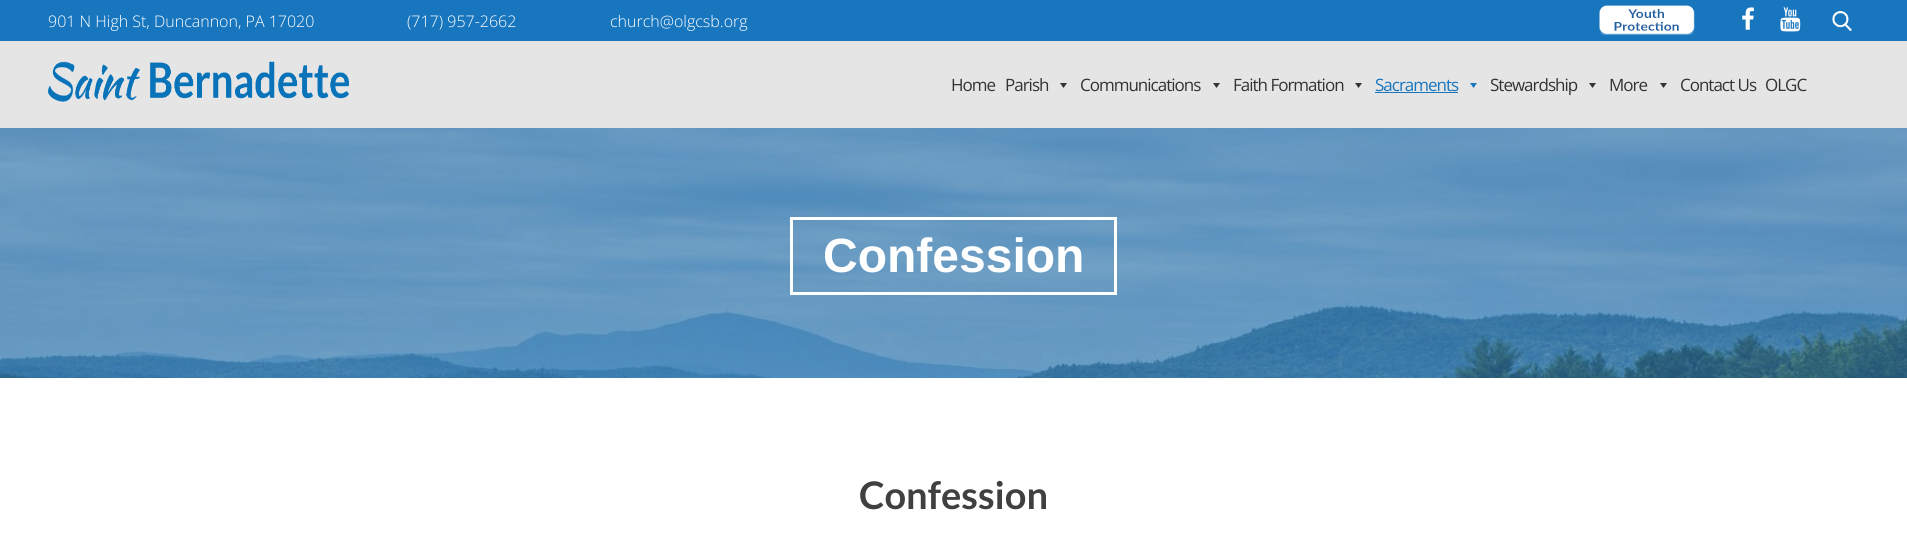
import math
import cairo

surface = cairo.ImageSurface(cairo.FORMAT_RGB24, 1907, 537)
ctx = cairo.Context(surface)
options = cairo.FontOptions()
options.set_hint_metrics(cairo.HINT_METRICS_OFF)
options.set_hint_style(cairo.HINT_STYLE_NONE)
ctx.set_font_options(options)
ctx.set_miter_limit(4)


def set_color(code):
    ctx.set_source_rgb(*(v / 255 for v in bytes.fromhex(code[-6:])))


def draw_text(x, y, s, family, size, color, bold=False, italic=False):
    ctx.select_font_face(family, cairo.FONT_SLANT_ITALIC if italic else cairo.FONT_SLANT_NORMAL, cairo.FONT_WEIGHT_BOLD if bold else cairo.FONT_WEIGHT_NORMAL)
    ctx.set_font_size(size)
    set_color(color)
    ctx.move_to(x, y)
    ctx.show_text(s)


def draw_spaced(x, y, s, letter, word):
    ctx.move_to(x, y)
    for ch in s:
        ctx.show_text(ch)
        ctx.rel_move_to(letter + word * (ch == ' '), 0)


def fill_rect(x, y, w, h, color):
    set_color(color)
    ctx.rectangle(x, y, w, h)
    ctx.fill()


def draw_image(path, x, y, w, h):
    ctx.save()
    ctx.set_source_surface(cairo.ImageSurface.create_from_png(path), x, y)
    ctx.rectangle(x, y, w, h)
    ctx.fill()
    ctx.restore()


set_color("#ffffff")
ctx.paint()
fill_rect(0, 0, 1907, 41, "#1876bf")
draw_text(48, 27, "901 N High St, Duncannon, PA 17020", "Open Sans Light", 16, "#ffffff")
draw_text(407, 27, "(717) 957-2662", "Open Sans Light", 16, "#ffffff")
draw_text(610, 27, "church@olgcsb.org", "Open Sans Light", 16, "#ffffff")
draw_image("assets/img1.png", 1599, 5, 96, 30)
draw_image("assets/img2.png", 1742, 7, 12, 23)
draw_image("assets/img3.png", 1780, 7, 21, 25)
draw_image("assets/img4.png", 1832, 11, 20, 20)
fill_rect(0, 41, 1907, 87, "#e5e5e5")
draw_image("assets/img5.png", 48, 61, 301, 41)
ctx.select_font_face("Open Sans")
ctx.set_font_size(17)
set_color("#333333")
draw_spaced(951, 91, "Home", -1, 0)
draw_spaced(1005, 91, "Parish", -1, 0)
ctx.new_path()
ctx.move_to(1067, 83)
ctx.line_to(1063.5, 88)
ctx.line_to(1060, 83)
ctx.close_path()
ctx.fill()
draw_spaced(1080, 91, "Communications", -1, 0)
ctx.new_path()
ctx.move_to(1220, 83)
ctx.line_to(1216.5, 88)
ctx.line_to(1213, 83)
ctx.close_path()
ctx.fill()
draw_spaced(1233, 91, "Faith Formation", -1, 0)
ctx.new_path()
ctx.move_to(1362, 83)
ctx.line_to(1358.5, 88)
ctx.line_to(1355, 83)
ctx.close_path()
ctx.fill()
set_color("#1876bf")
draw_spaced(1375, 91, "Sacraments", -1, 0)
fill_rect(1375, 92, 83, 1, "#1876bf")
ctx.new_path()
ctx.move_to(1477, 83)
ctx.line_to(1473.5, 88)
ctx.line_to(1470, 83)
ctx.close_path()
ctx.fill()
set_color("#333333")
draw_spaced(1490, 91, "Stewardship", -1, 0)
ctx.new_path()
ctx.move_to(1596, 83)
ctx.line_to(1592.5, 88)
ctx.line_to(1589, 83)
ctx.close_path()
ctx.fill()
draw_spaced(1609, 91, "More", -1, 0)
ctx.new_path()
ctx.move_to(1667, 83)
ctx.line_to(1663.5, 88)
ctx.line_to(1660, 83)
ctx.close_path()
ctx.fill()
draw_spaced(1680, 91, "Contact Us", -1, 0)
draw_spaced(1765, 91, "OLGC", -1, 0)
draw_image("assets/img6.png", 0, 128, 1907, 250)
ctx.rectangle(791.5, 218.5, 324, 75)
set_color("#ffffff")
ctx.set_line_width(3)
ctx.stroke()
draw_text(823, 272, "Confession", "Liberation Sans", 48, "#ffffff", bold=True)
draw_text(859, 509, "Confession", "Lato", 38, "#404040", bold=True)
surface.write_to_png("output.png")
